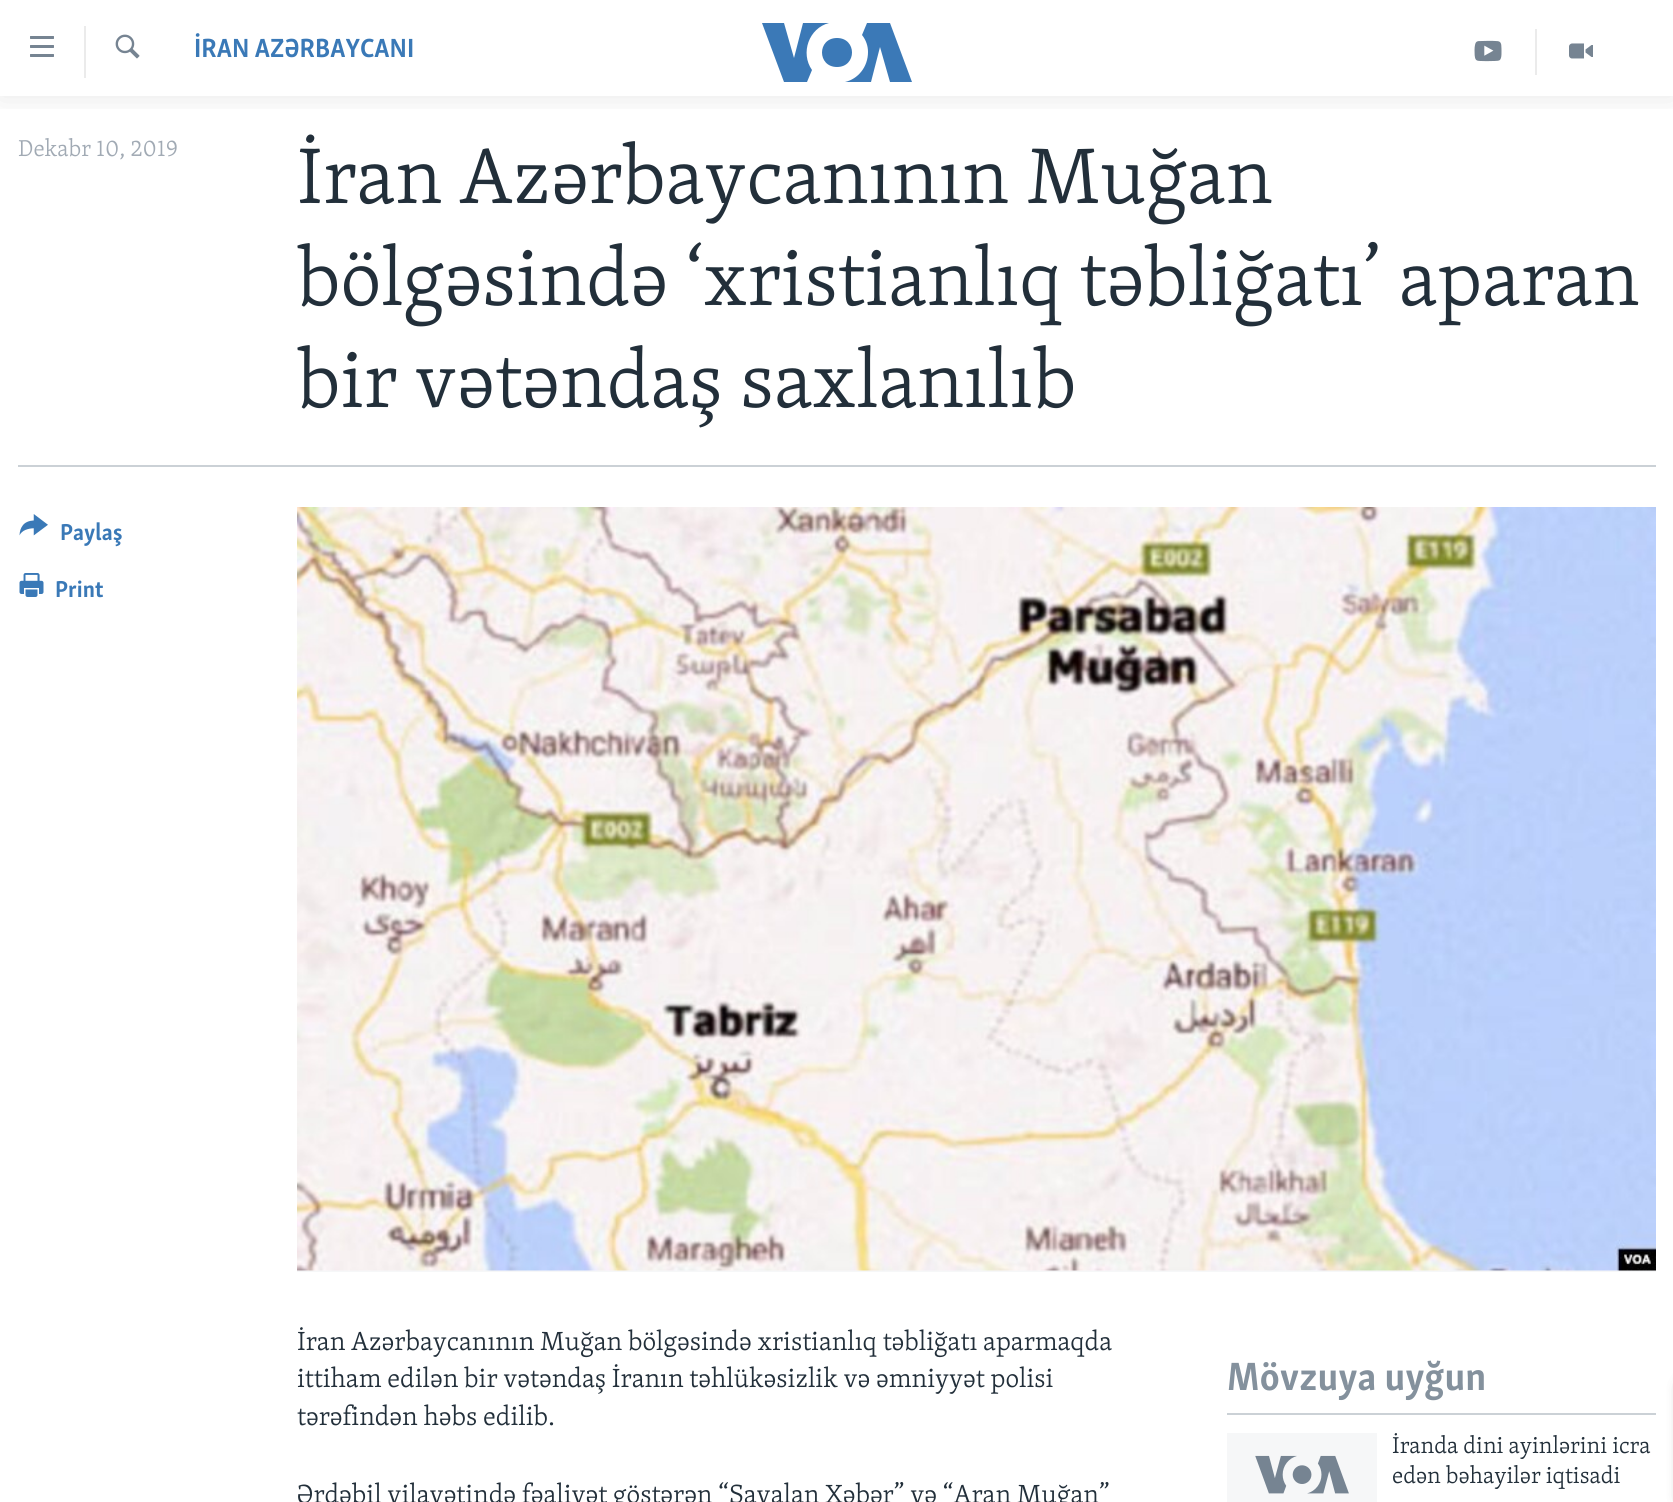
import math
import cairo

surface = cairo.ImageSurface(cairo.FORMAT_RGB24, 1673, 1502)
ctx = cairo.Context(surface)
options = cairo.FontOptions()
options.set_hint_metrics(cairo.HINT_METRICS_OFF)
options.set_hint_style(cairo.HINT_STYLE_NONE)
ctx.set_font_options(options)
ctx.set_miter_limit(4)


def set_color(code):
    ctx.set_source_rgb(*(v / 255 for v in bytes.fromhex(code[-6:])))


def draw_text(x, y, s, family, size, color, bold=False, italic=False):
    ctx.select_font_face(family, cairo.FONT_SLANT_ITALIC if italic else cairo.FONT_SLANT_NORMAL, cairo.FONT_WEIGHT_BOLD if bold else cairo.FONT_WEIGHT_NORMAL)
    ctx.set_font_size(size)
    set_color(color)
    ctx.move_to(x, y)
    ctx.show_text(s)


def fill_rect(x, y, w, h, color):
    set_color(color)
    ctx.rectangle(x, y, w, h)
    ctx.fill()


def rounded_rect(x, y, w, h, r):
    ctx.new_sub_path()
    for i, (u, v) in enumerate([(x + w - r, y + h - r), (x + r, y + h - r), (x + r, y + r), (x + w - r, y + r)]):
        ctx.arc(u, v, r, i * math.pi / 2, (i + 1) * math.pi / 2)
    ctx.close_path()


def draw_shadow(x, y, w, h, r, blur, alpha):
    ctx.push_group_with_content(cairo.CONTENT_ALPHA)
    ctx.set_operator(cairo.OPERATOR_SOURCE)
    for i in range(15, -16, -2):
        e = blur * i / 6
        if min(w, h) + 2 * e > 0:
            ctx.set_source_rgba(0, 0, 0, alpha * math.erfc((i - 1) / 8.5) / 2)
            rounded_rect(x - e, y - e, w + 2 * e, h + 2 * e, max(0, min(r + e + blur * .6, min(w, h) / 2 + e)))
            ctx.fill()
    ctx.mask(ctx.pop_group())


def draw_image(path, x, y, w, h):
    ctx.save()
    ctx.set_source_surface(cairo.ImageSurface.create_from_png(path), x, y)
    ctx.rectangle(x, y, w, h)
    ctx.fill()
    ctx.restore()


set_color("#ffffff")
ctx.paint()
ctx.save()
ctx.rectangle(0, 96, 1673, 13)
ctx.clip()
set_color("#000000")
draw_shadow(0, 0, 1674, 96, 0, 15, 0.1)
ctx.restore()
draw_image("assets/img1.png", 30, 36, 24, 21)
fill_rect(84, 26, 2, 52, "#ebebeb")
draw_image("assets/img2.png", 115, 34, 25, 25)
draw_text(194, 57, "İRAN AZƏRBAYCANI", "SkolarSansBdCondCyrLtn", 27, "#3a79b7", bold=True)
set_color("#3b79b7")
ctx.new_path()
ctx.move_to(812, 70)
ctx.line_to(807, 82)
ctx.line_to(784, 82)
ctx.line_to(762, 23)
ctx.line_to(784, 23)
ctx.line_to(794, 58)
ctx.line_to(803, 23)
ctx.line_to(829, 23)
ctx.curve_to(809, 28, 800, 53, 812, 70)
ctx.close_path()
ctx.move_to(837, 38)
ctx.curve_to(817, 38, 817, 67, 837, 67)
ctx.curve_to(857, 67, 857, 38, 837, 38)
ctx.close_path()
ctx.move_to(868, 52)
ctx.curve_to(868, 67, 858, 79, 845, 82)
ctx.line_to(871, 82)
ctx.line_to(880, 47)
ctx.line_to(890, 82)
ctx.line_to(912, 82)
ctx.line_to(890, 23)
ctx.line_to(867, 23)
ctx.line_to(862, 35)
ctx.curve_to(866, 40, 868, 46, 868, 52)
ctx.close_path()
ctx.fill()
fill_rect(1535, 29, 2, 46, "#ebebeb")
draw_image("assets/img3.png", 1474, 40, 28, 22)
draw_image("assets/img4.png", 1569, 43, 24, 16)
draw_text(18, 156, "Dekabr 10, 2019", "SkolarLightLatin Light", 23.6, "#a1aab4")
draw_text(297, 203, "İran Azərbaycanının Muğan", "SkolarLightLatin Light", 81, "#222f3a")
draw_text(297, 305, "bölgəsində ‘xristianlıq təbliğatı’ aparan", "SkolarLightLatin Light", 81, "#222f3a")
draw_text(297, 407, "bir vətəndaş saxlanılıb", "SkolarLightLatin Light", 81, "#222f3a")
fill_rect(18, 465, 1638, 2, "#cbd1d6")
draw_image("assets/img5.png", 19, 514, 29, 22)
draw_text(60, 540, "Paylaş", "SkolarSansBdCondCyrLtn", 23.6, "#3a79b7", bold=True)
draw_image("assets/img6.png", 19, 573, 25, 24)
draw_text(55, 597, "Print", "SkolarSansBdCondCyrLtn", 23.6, "#3a79b7", bold=True)
fill_rect(297, 1270, 1359, 2, "#f6f7f8")
draw_image("assets/img7.png", 297, 507, 1359, 764)
draw_text(297, 1350, "İran Azərbaycanının Muğan bölgəsində xristianlıq təbliğatı aparmaqda", "SkolarLightLatin Light", 27, "#222f3a")
draw_text(297, 1387, "ittiham edilən bir vətəndaş İranın təhlükəsizlik və əmniyyət polisi", "SkolarLightLatin Light", 27, "#222f3a")
draw_text(297, 1425, "tərəfindən həbs edilib.", "SkolarLightLatin Light", 27, "#222f3a")
draw_text(297, 1503, "Ərdəbil vilayətində fəaliyət göstərən “Savalan Xəbər” və “Aran Muğan”", "SkolarLightLatin Light", 27, "#222f3a")
fill_rect(1227, 1413, 429, 2, "#cbd1d6")
draw_text(1227, 1390, "Mövzuya uyğun", "SkolarSansBdCondCyrLtn", 40.5, "#84919d", bold=True)
fill_rect(1227, 1433, 150, 69, "#f6f7f8")
draw_image("assets/img8.png", 1255, 1455, 94, 39)
draw_text(1392, 1453, "İranda dini ayinlərini icra", "SkolarLightLatin Light", 23.6, "#222f3a")
draw_text(1392, 1483, "edən bəhayilər iqtisadi", "SkolarLightLatin Light", 23.6, "#222f3a")
set_color("#000000")
draw_shadow(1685, 1382, 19, 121, 8, 7.5, 0.85)
surface.write_to_png("output.png")
